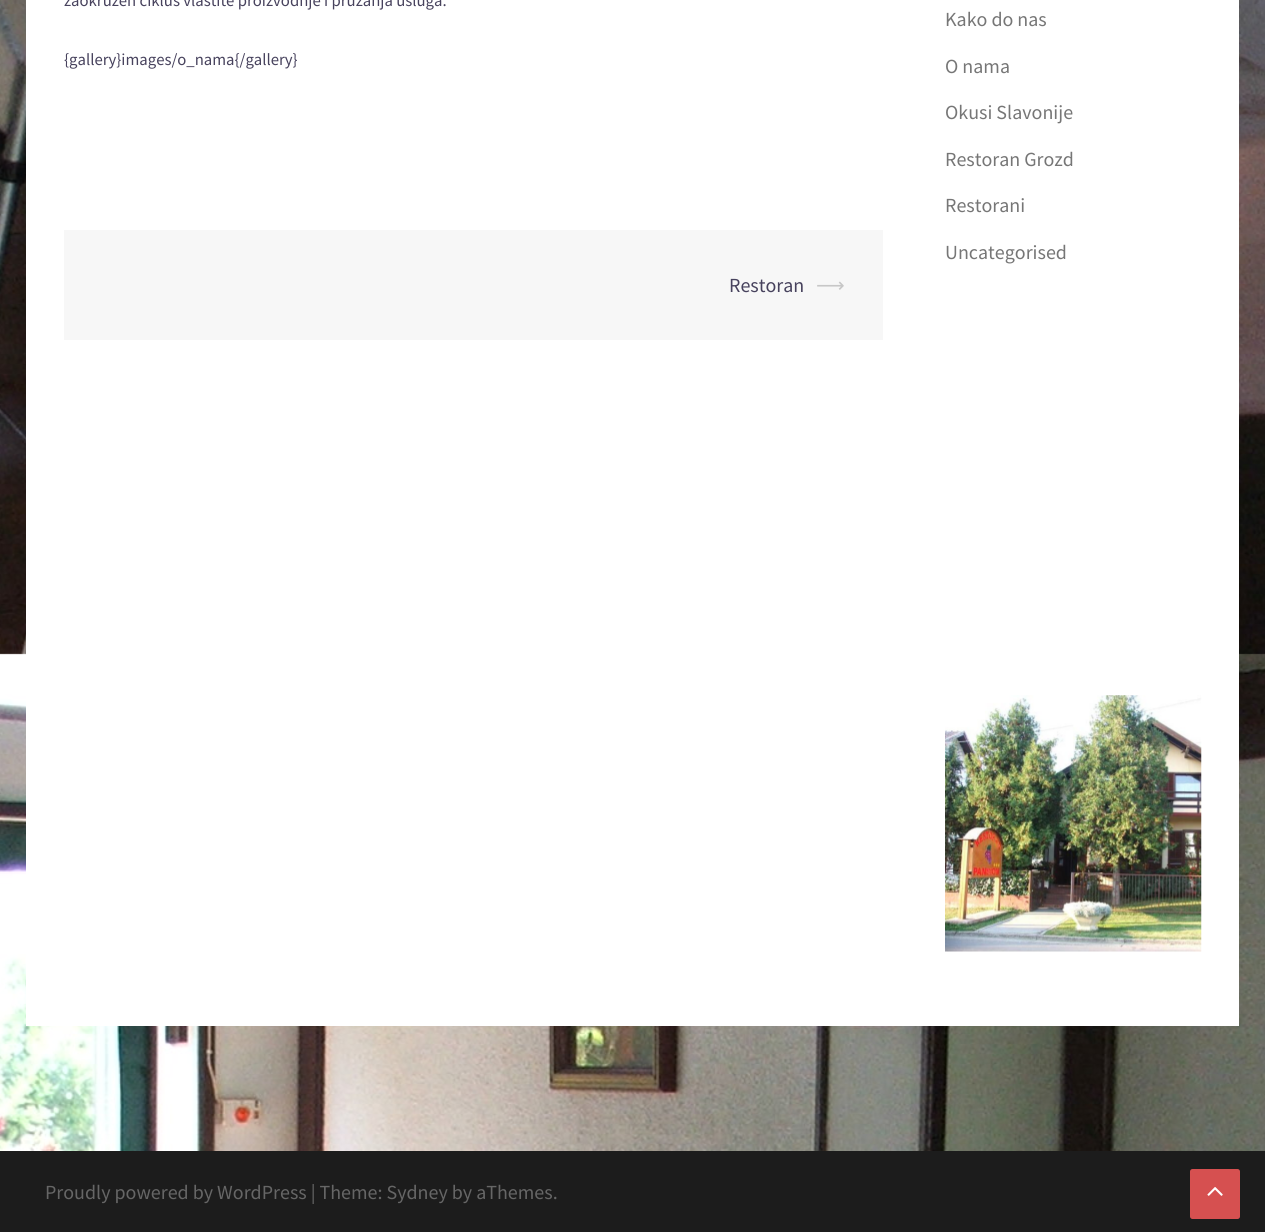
import math
import cairo

surface = cairo.ImageSurface(cairo.FORMAT_RGB24, 1265, 1232)
ctx = cairo.Context(surface)
options = cairo.FontOptions()
options.set_hint_metrics(cairo.HINT_METRICS_OFF)
options.set_hint_style(cairo.HINT_STYLE_NONE)
ctx.set_font_options(options)
ctx.set_miter_limit(4)


def set_color(code):
    ctx.set_source_rgb(*(v / 255 for v in bytes.fromhex(code[-6:])))


def draw_text(x, y, s, family, size, color, bold=False, italic=False):
    ctx.select_font_face(family, cairo.FONT_SLANT_ITALIC if italic else cairo.FONT_SLANT_NORMAL, cairo.FONT_WEIGHT_BOLD if bold else cairo.FONT_WEIGHT_NORMAL)
    ctx.set_font_size(size)
    set_color(color)
    ctx.move_to(x, y)
    ctx.show_text(s)


def fill_rect(x, y, w, h, color):
    set_color(color)
    ctx.rectangle(x, y, w, h)
    ctx.fill()


def rounded_rect(x, y, w, h, r):
    ctx.new_sub_path()
    for i, (u, v) in enumerate([(x + w - r, y + h - r), (x + r, y + h - r), (x + r, y + r), (x + w - r, y + r)]):
        ctx.arc(u, v, r, i * math.pi / 2, (i + 1) * math.pi / 2)
    ctx.close_path()


def draw_image(path, x, y, w, h):
    ctx.save()
    ctx.set_source_surface(cairo.ImageSurface.create_from_png(path), x, y)
    ctx.rectangle(x, y, w, h)
    ctx.fill()
    ctx.restore()


set_color("#ffffff")
ctx.paint()
draw_image("assets/img1.png", 0, 0, 1265, 1151)
fill_rect(26, 0, 1213, 1026, "#ffffff")
draw_text(64, 6, "zaokružen ciklus vlastite proizvodnje i pružanja usluga.", "Source Sans Pro", 16.7, "#47425d")
draw_text(64, 65, "{gallery}images/o_nama{/gallery}", "Source Sans Pro", 16.7, "#47425d")
fill_rect(64, 230, 819, 110, "#f7f7f7")
draw_text(729, 292, "Restoran", "Source Sans Pro", 20, "#47425d")
draw_text(816, 292, "⟶", "DejaVu Sans", 20, "#c7c7c7")
draw_text(945, 26, "Kako do nas", "Source Sans Pro", 20, "#767676")
draw_text(945, 73, "O nama", "Source Sans Pro", 20, "#767676")
draw_text(945, 119, "Okusi Slavonije", "Source Sans Pro", 20, "#767676")
draw_text(945, 166, "Restoran Grozd", "Source Sans Pro", 20, "#767676")
draw_text(945, 212, "Restorani", "Source Sans Pro", 20, "#767676")
draw_text(945, 259, "Uncategorised", "Source Sans Pro", 20, "#767676")
draw_image("assets/img2.png", 945, 695, 257, 257)
fill_rect(0, 1151, 1265, 81, "#1c1c1c")
draw_text(45, 1199, "Proudly powered by WordPress | Theme: Sydney by aThemes.", "Source Sans Pro", 20, "#666666")
set_color("#d65050")
rounded_rect(1190, 1169, 50, 50, 2.5)
ctx.fill()
draw_image("assets/img3.png", 1207, 1187, 16, 9)
surface.write_to_png("output.png")
